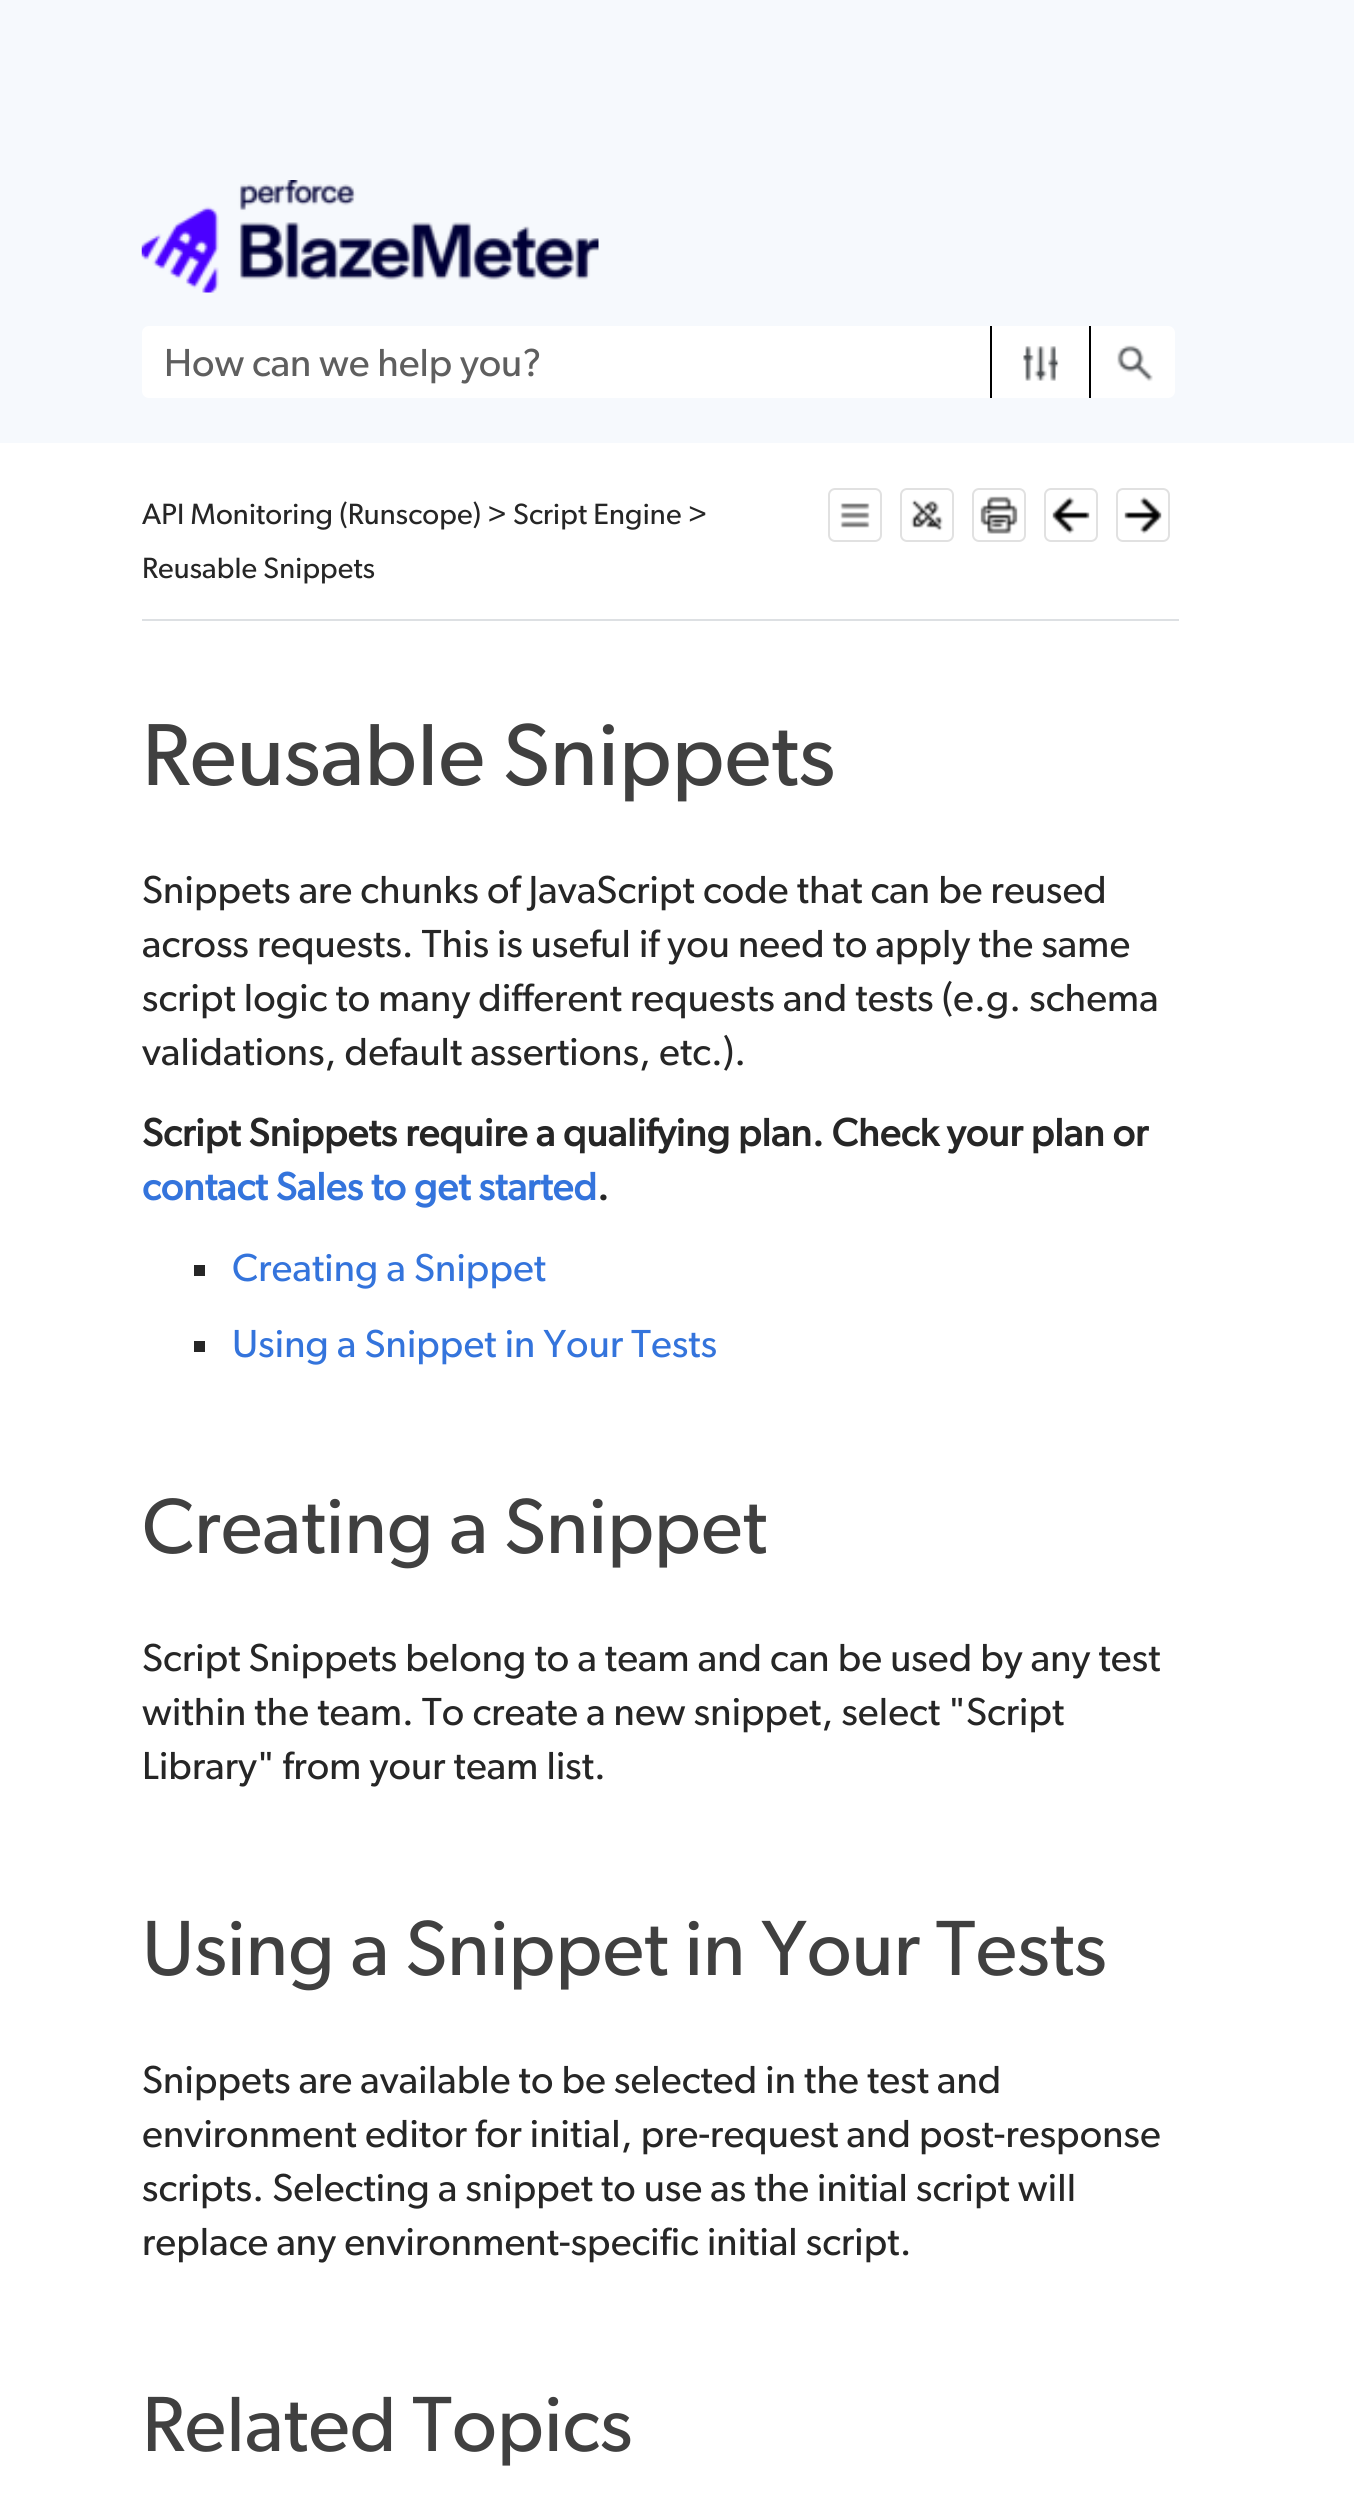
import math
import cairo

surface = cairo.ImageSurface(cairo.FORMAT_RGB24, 1354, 2513)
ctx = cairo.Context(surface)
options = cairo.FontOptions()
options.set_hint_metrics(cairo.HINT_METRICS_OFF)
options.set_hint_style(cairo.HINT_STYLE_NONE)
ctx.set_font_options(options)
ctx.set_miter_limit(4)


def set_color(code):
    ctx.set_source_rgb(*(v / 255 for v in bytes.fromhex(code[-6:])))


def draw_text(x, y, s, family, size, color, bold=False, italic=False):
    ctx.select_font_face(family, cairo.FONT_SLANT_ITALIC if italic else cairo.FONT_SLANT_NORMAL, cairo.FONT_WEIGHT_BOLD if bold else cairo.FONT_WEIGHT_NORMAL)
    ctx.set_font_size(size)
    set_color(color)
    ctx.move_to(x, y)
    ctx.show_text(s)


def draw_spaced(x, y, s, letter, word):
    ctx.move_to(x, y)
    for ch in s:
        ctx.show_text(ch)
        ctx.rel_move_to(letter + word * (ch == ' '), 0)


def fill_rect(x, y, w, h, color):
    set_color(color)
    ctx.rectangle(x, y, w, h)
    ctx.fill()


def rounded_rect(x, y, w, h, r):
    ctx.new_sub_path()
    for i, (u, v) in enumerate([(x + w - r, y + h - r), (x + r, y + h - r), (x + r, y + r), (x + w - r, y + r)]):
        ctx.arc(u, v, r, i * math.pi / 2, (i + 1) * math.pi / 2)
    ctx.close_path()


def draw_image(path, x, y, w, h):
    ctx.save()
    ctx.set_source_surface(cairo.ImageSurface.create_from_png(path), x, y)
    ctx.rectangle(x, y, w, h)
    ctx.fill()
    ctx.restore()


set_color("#ffffff")
ctx.paint()
fill_rect(0, 0, 1354, 443, "#f6f9fd")
draw_image("assets/img1.png", 141, 180, 458, 113)
set_color("#ffffff")
rounded_rect(142, 326, 1033, 72, 7)
ctx.fill()
draw_text(164, 376, "How can we help you?", "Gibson", 36, "#5f5f5f")
draw_image("assets/img2.png", 1023, 346, 36, 35)
fill_rect(1089, 326, 2, 72, "#000000")
fill_rect(990, 326, 2, 72, "#000000")
draw_image("assets/img3.png", 1117, 345, 36, 37)
fill_rect(142, 619, 1037, 2, "#dde0e3")
ctx.set_font_size(27)
set_color("#262626")
draw_spaced(142, 524, "API Monitoring (Runscope) > Script Engine >", 0.18, 0)
draw_spaced(142, 578, "Reusable Snippets", 0.18, 0)
rounded_rect(829, 489, 52, 52, 6)
set_color("#e1e1e1")
ctx.stroke()
draw_image("assets/img4.png", 840, 503, 30, 25)
rounded_rect(901, 489, 52, 52, 6)
ctx.stroke()
draw_image("assets/img5.png", 910, 499, 33, 32)
rounded_rect(973, 489, 52, 52, 6)
ctx.stroke()
draw_image("assets/img6.png", 980, 496, 38, 38)
rounded_rect(1045, 489, 52, 52, 6)
ctx.stroke()
draw_image("assets/img7.png", 1052, 496, 38, 38)
rounded_rect(1117, 489, 52, 52, 6)
ctx.stroke()
draw_image("assets/img8.png", 1124, 496, 38, 38)
ctx.set_font_size(81)
set_color("#404040")
draw_spaced(142, 785, "Reusable Snippets", 0.18, 0)
ctx.set_font_size(36)
set_color("#262626")
draw_spaced(142, 903, "Snippets are chunks of JavaScript code that can be reused", 0.18, 0)
draw_spaced(142, 957, "across requests. This is useful if you need to apply the same", 0.18, 0)
draw_spaced(142, 1011, "script logic to many different requests and tests (e.g. schema", 0.18, 0)
draw_spaced(142, 1065, "validations, default assertions, etc.).", 0.18, 0)
ctx.select_font_face("Gibson", cairo.FONT_SLANT_NORMAL, cairo.FONT_WEIGHT_BOLD)
draw_spaced(142, 1146, "Script Snippets require a qualifying plan. Check your plan or", 0.18, 0)
set_color("#3474dc")
draw_spaced(142, 1200, "contact Sales to get started", 0.18, 0)
set_color("#262626")
draw_spaced(597, 1200, ".", 0.18, 0)
fill_rect(194, 1265, 11, 11, "#262626")
ctx.select_font_face("Gibson")
set_color("#3474dc")
draw_spaced(232, 1281, "Creating a Snippet", 0.18, 0)
fill_rect(194, 1341, 11, 11, "#262626")
set_color("#3474dc")
draw_spaced(232, 1357, "Using a Snippet in Your Tests", 0.18, 0)
ctx.set_font_size(72)
set_color("#404040")
draw_spaced(142, 1553, "Creating a Snippet", 0.18, 0)
ctx.set_font_size(36)
set_color("#262626")
draw_spaced(142, 1671, "Script Snippets belong to a team and can be used by any test", 0.18, 0)
draw_spaced(142, 1725, "within the team. To create a new snippet, select \"Script", 0.18, 0)
draw_spaced(142, 1779, "Library\" from your team list.", 0.18, 0)
ctx.set_font_size(72)
set_color("#404040")
draw_spaced(142, 1975, "Using a Snippet in Your Tests", 0.18, 0)
ctx.set_font_size(36)
set_color("#262626")
draw_spaced(142, 2093, "Snippets are available to be selected in the test and", 0.18, 0)
draw_spaced(142, 2147, "environment editor for initial, pre-request and post-response", 0.18, 0)
draw_spaced(142, 2201, "scripts. Selecting a snippet to use as the initial script will", 0.18, 0)
draw_spaced(142, 2255, "replace any environment-specific initial script.", 0.18, 0)
ctx.set_font_size(72)
set_color("#404040")
draw_spaced(142, 2451, "Related Topics", 0.18, 0)
surface.write_to_png("output.png")
